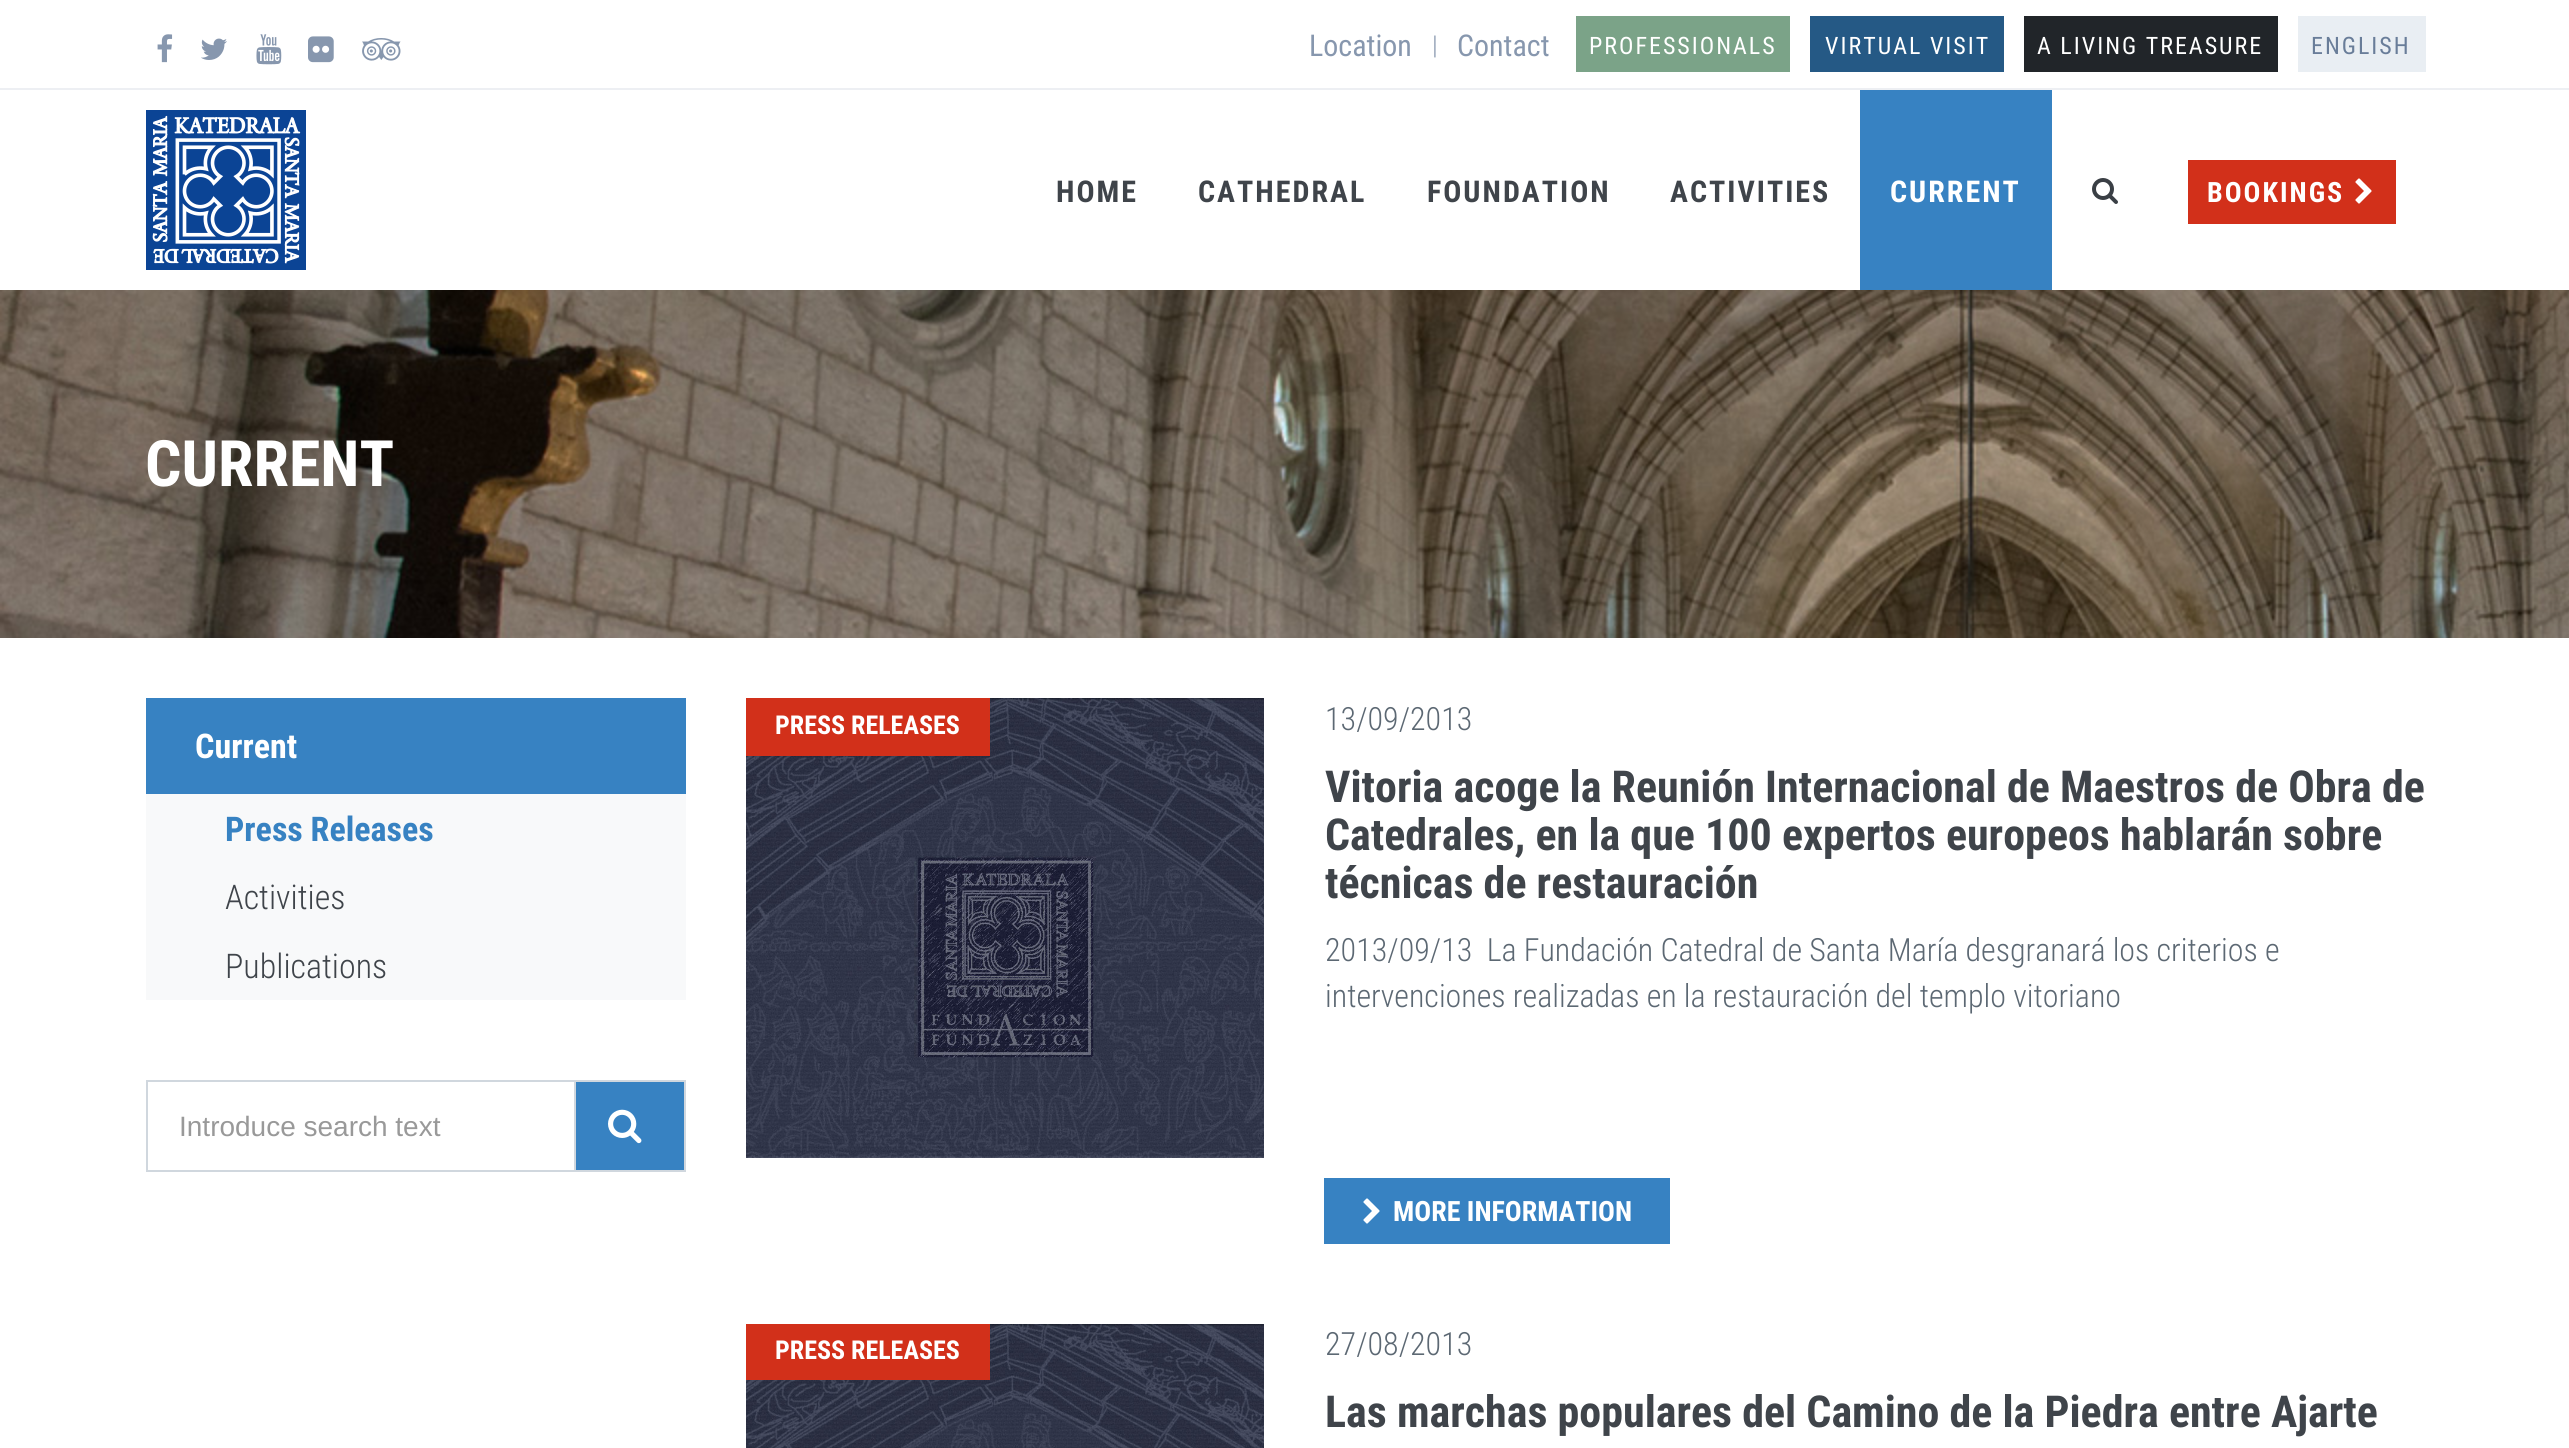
import math
import cairo

surface = cairo.ImageSurface(cairo.FORMAT_RGB24, 2569, 1448)
ctx = cairo.Context(surface)
options = cairo.FontOptions()
options.set_hint_metrics(cairo.HINT_METRICS_OFF)
options.set_hint_style(cairo.HINT_STYLE_NONE)
ctx.set_font_options(options)
ctx.set_miter_limit(4)


def set_color(code):
    ctx.set_source_rgb(*(v / 255 for v in bytes.fromhex(code[-6:])))


def draw_text(x, y, s, family, size, color, bold=False, italic=False):
    ctx.select_font_face(family, cairo.FONT_SLANT_ITALIC if italic else cairo.FONT_SLANT_NORMAL, cairo.FONT_WEIGHT_BOLD if bold else cairo.FONT_WEIGHT_NORMAL)
    ctx.set_font_size(size)
    set_color(color)
    ctx.move_to(x, y)
    ctx.show_text(s)


def draw_spaced(x, y, s, letter, word):
    ctx.move_to(x, y)
    for ch in s:
        ctx.show_text(ch)
        ctx.rel_move_to(letter + word * (ch == ' '), 0)


def fill_rect(x, y, w, h, color):
    set_color(color)
    ctx.rectangle(x, y, w, h)
    ctx.fill()


def draw_image(path, x, y, w, h):
    ctx.save()
    ctx.set_source_surface(cairo.ImageSurface.create_from_png(path), x, y)
    ctx.rectangle(x, y, w, h)
    ctx.fill()
    ctx.restore()


set_color("#ffffff")
ctx.paint()
fill_rect(0, 88, 2569, 2, "#edeff3")
draw_image("assets/img1.png", 157, 34, 16, 29)
draw_image("assets/img2.png", 201, 38, 26, 22)
draw_image("assets/img3.png", 256, 34, 26, 31)
draw_image("assets/img4.png", 308, 36, 26, 27)
draw_image("assets/img5.png", 362, 38, 39, 23)
draw_text(1309, 56, "Location", "Roboto Condensed", 30, "#8797ae")
draw_text(1432, 54, "|", "Roboto Condensed Light", 26, "#8797ae")
draw_text(1457, 56, "Contact", "Roboto Condensed", 30, "#8797ae")
fill_rect(1576, 16, 214, 56, "#7ba388")
ctx.set_font_size(24)
set_color("#ffffff")
draw_spaced(1589, 54, "PROFESSIONALS", 2, 0)
fill_rect(1810, 16, 194, 56, "#255985")
set_color("#ffffff")
draw_spaced(1825, 54, "VIRTUAL VISIT", 2, 0)
fill_rect(2024, 16, 254, 56, "#212529")
set_color("#ffffff")
draw_spaced(2037, 54, "A LIVING TREASURE", 2, 0)
fill_rect(2298, 16, 128, 56, "#e9eef3")
set_color("#697d99")
draw_spaced(2311, 54, "ENGLISH", 2, 0)
draw_image("assets/img6.png", 146, 110, 160, 160)
ctx.select_font_face("Roboto Condensed", cairo.FONT_SLANT_NORMAL, cairo.FONT_WEIGHT_BOLD)
ctx.set_font_size(30)
set_color("#3f444a")
draw_spaced(1056, 202, "HOME", 2, 0)
draw_spaced(1198, 202, "CATHEDRAL", 2, 0)
draw_spaced(1427, 202, "FOUNDATION", 2, 0)
draw_spaced(1670, 202, "ACTIVITIES", 2, 0)
fill_rect(1860, 90, 192, 200, "#3782c2")
set_color("#ffffff")
draw_spaced(1890, 202, "CURRENT", 2, 0)
draw_image("assets/img7.png", 2092, 178, 26, 26)
fill_rect(2188, 160, 208, 64, "#d2301a")
ctx.set_font_size(28)
set_color("#ffffff")
draw_spaced(2207, 202, "BOOKINGS", 2, 0)
draw_image("assets/img8.png", 2355, 178, 17, 26)
draw_image("assets/img9.png", 0, 290, 2569, 348)
draw_text(145, 486, "CURRENT", "Roboto Condensed", 64, "#ffffff", bold=True)
fill_rect(146, 794, 540, 206, "#f8f9fa")
fill_rect(146, 698, 540, 96, "#3782c2")
draw_text(195, 758, "Current", "Roboto Condensed", 34, "#ffffff", bold=True)
draw_text(225, 841, "Press Releases", "Roboto Condensed", 34, "#3782c2", bold=True)
draw_text(225, 909, "Activities", "Roboto Condensed Light", 34, "#3f444a")
draw_text(225, 978, "Publications", "Roboto Condensed Light", 34, "#3f444a")
ctx.rectangle(147, 1081, 428, 90)
set_color("#d0d7de")
ctx.stroke()
draw_text(179, 1136, "Introduce search text", "Liberation Sans", 28, "#999999")
set_color("#3782c2")
ctx.rectangle(575, 1081, 110, 90)
ctx.fill_preserve()
set_color("#d0d7de")
ctx.stroke()
draw_image("assets/img10.png", 608, 1109, 34, 35)
draw_image("assets/img11.png", 746, 698, 518, 460)
fill_rect(746, 698, 244, 58, "#d2301a")
draw_text(775, 734, "PRESS RELEASES", "Roboto Condensed", 26, "#ffffff", bold=True)
draw_text(1325, 730, "13/09/2013", "Roboto Condensed Light", 32, "#5c6873")
draw_text(1325, 802, "Vitoria acoge la Reunión Internacional de Maestros de Obra de", "Roboto Condensed", 44, "#3f444a", bold=True)
draw_text(1325, 850, "Catedrales, en la que 100 expertos europeos hablarán sobre", "Roboto Condensed", 44, "#3f444a", bold=True)
draw_text(1325, 898, "técnicas de restauración", "Roboto Condensed", 44, "#3f444a", bold=True)
draw_text(1325, 961, "2013/09/13  La Fundación Catedral de Santa María desgranará los criterios e", "Roboto Condensed Light", 32, "#5c6873")
draw_text(1325, 1007, "intervenciones realizadas en la restauración del templo vitoriano", "Roboto Condensed Light", 32, "#5c6873")
fill_rect(1324, 1178, 346, 66, "#3782c2")
draw_image("assets/img12.png", 1363, 1198, 17, 26)
draw_text(1393, 1221, "MORE INFORMATION", "Roboto Condensed", 28, "#ffffff", bold=True)
draw_image("assets/img13.png", 746, 1324, 518, 124)
fill_rect(746, 1324, 244, 56, "#d2301a")
draw_text(775, 1359, "PRESS RELEASES", "Roboto Condensed", 26, "#ffffff", bold=True)
draw_text(1325, 1355, "27/08/2013", "Roboto Condensed Light", 32, "#5c6873")
draw_text(1325, 1427, "Las marchas populares del Camino de la Piedra entre Ajarte", "Roboto Condensed", 44, "#3f444a", bold=True)
surface.write_to_png("output.png")
